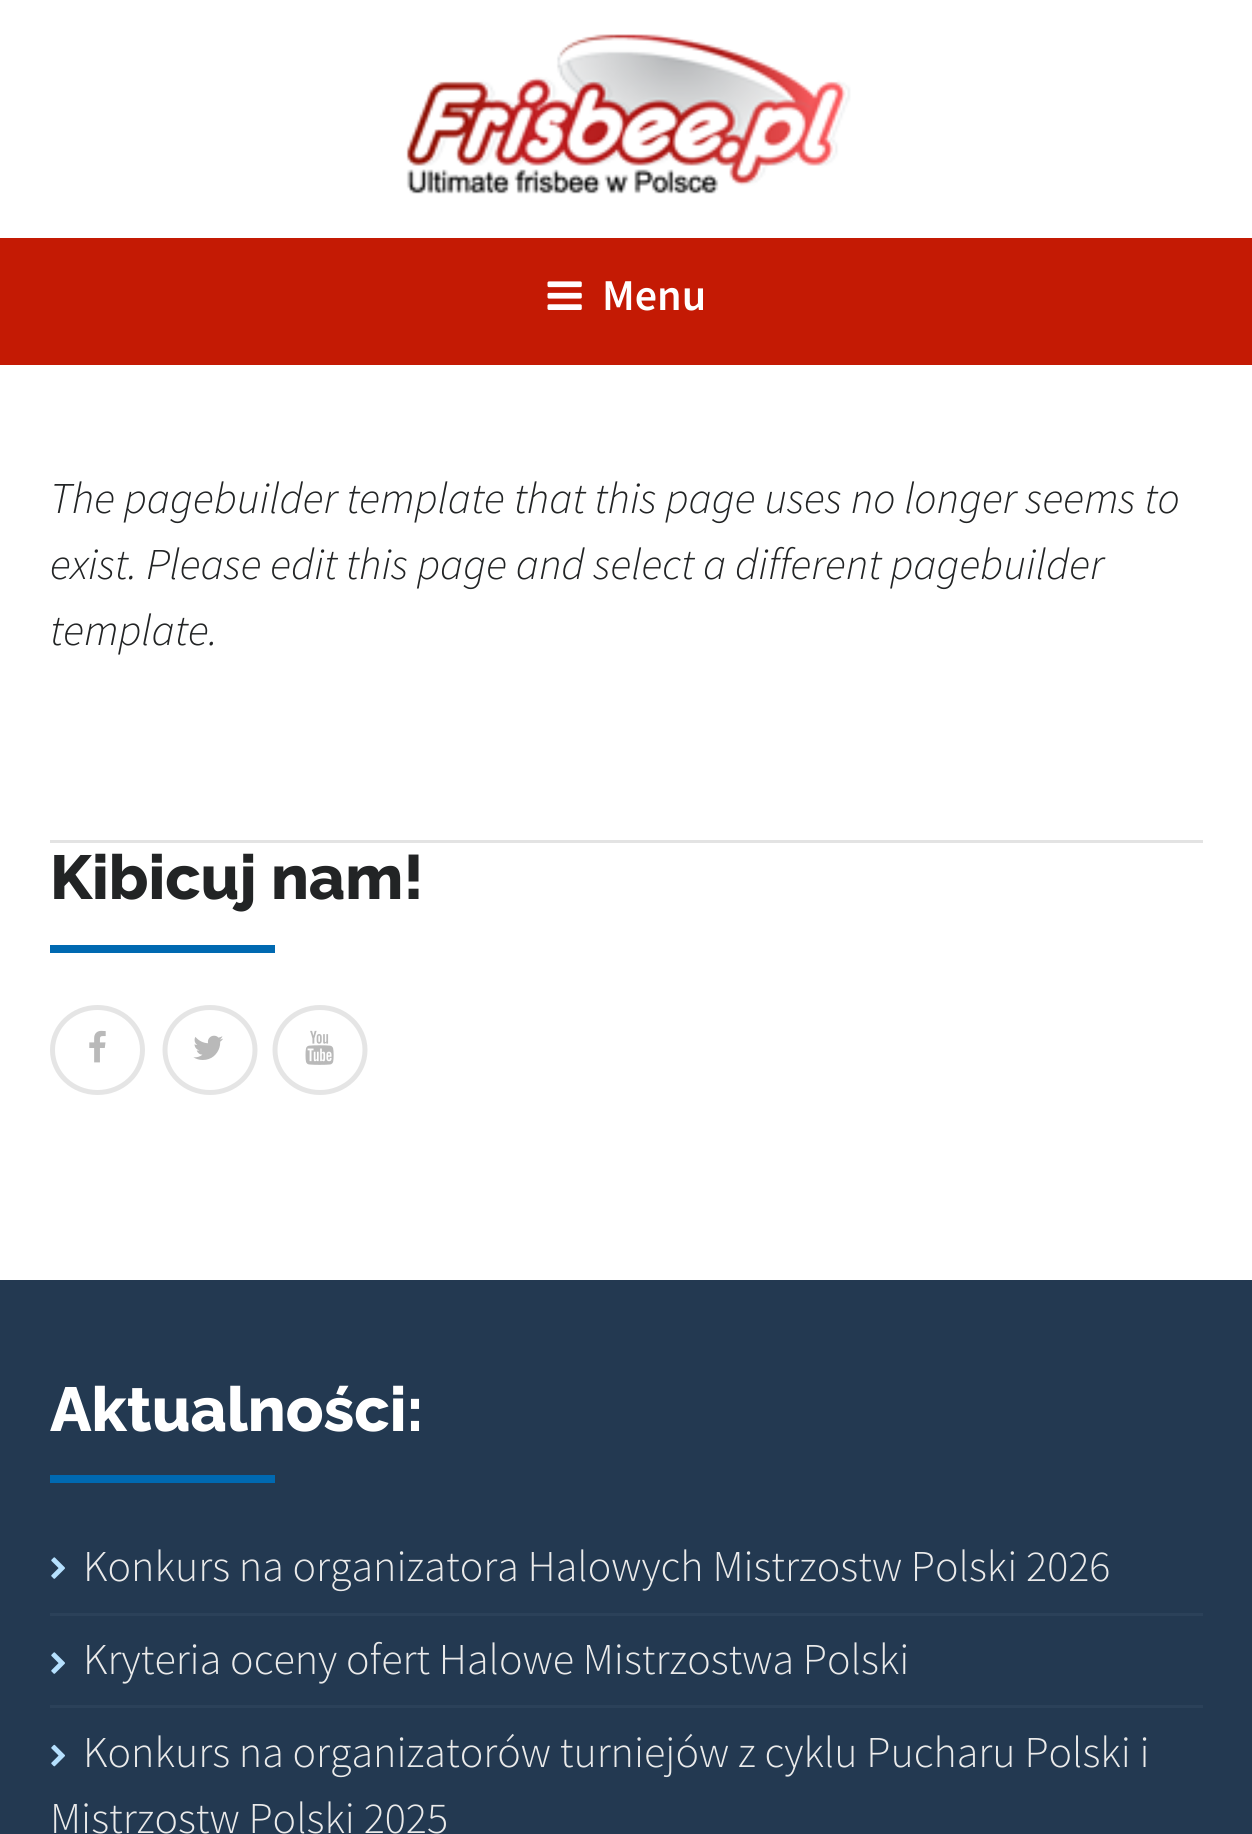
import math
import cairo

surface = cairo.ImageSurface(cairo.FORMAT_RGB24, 1252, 1834)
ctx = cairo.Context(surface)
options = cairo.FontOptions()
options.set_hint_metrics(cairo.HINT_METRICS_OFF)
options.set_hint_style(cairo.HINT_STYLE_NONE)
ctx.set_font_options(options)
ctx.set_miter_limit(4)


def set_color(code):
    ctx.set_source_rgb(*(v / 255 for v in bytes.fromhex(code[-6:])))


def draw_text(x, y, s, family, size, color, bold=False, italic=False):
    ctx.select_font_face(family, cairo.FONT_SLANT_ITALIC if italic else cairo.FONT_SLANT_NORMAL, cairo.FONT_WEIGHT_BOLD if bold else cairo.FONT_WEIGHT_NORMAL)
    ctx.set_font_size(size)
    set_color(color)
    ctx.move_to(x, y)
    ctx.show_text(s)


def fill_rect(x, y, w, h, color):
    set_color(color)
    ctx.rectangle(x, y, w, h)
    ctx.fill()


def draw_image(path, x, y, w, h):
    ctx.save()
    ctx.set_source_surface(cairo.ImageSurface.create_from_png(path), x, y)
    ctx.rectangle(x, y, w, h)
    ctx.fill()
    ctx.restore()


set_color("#ffffff")
ctx.paint()
draw_image("assets/img1.png", 406, 34, 445, 160)
fill_rect(0, 238, 1252, 127, "#c41a04")
draw_image("assets/img2.png", 547, 281, 35, 29)
draw_text(602, 310, "Menu", "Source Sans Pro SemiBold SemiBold", 44, "#ffffff")
draw_text(50, 513, "The pagebuilder template that this page uses no longer seems to", "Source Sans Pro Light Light", 44, "#222425", italic=True)
draw_text(50, 579, "exist. Please edit this page and select a different pagebuilder", "Source Sans Pro Light Light", 44, "#222425", italic=True)
draw_text(50, 645, "template.", "Source Sans Pro Light Light", 44, "#222425", italic=True)
fill_rect(50, 840, 1153, 3, "#e3e3e3")
draw_text(50, 899, "Kibicuj nam!", "Raleway Thin", 62, "#222425")
fill_rect(50, 945, 225, 8, "#0069b1")
ctx.new_path()
ctx.move_to(97.5, 1007.5)
ctx.curve_to(122.5, 1007.5, 142.5, 1026.5, 142.5, 1050)
ctx.curve_to(142.5, 1073.5, 122.5, 1092.5, 97.5, 1092.5)
ctx.curve_to(72.5, 1092.5, 52.5, 1073.5, 52.5, 1050)
ctx.curve_to(52.5, 1026.5, 72.5, 1007.5, 97.5, 1007.5)
ctx.close_path()
set_color("#e5e5e5")
ctx.set_line_width(5)
ctx.stroke()
draw_image("assets/img3.png", 89, 1030, 17, 33)
ctx.new_path()
ctx.move_to(210, 1007.5)
ctx.curve_to(235, 1007.5, 255, 1026.5, 255, 1050)
ctx.curve_to(255, 1073.5, 235, 1092.5, 210, 1092.5)
ctx.curve_to(185, 1092.5, 165, 1073.5, 165, 1050)
ctx.curve_to(165, 1026.5, 185, 1007.5, 210, 1007.5)
ctx.close_path()
ctx.stroke()
draw_image("assets/img4.png", 193, 1035, 30, 25)
ctx.new_path()
ctx.move_to(320, 1007.5)
ctx.curve_to(345, 1007.5, 365, 1026.5, 365, 1050)
ctx.curve_to(365, 1073.5, 345, 1092.5, 320, 1092.5)
ctx.curve_to(295, 1092.5, 275, 1073.5, 275, 1050)
ctx.curve_to(275, 1026.5, 295, 1007.5, 320, 1007.5)
ctx.close_path()
ctx.stroke()
draw_image("assets/img5.png", 305, 1030, 29, 35)
fill_rect(0, 1280, 1252, 554, "#233951")
draw_text(50, 1431, "Aktualności:", "Raleway Thin", 62, "#ffffff")
fill_rect(50, 1475, 225, 8, "#0069b1")
fill_rect(50, 1613, 1153, 3, "#2b4159")
draw_image("assets/img6.png", 51, 1557, 14, 22)
draw_text(83, 1581, "Konkurs na organizatora Halowych Mistrzostw Polski 2026", "Source Sans Pro Light Light", 44, "#eaeaea")
fill_rect(50, 1705, 1153, 3, "#2b4159")
draw_image("assets/img6.png", 51, 1652, 14, 22)
draw_text(83, 1674, "Kryteria oceny ofert Halowe Mistrzostwa Polski", "Source Sans Pro Light Light", 44, "#eaeaea")
draw_image("assets/img7.png", 51, 1744, 14, 23)
draw_text(83, 1767, "Konkurs na organizatorów turniejów z cyklu Pucharu Polski i", "Source Sans Pro Light Light", 44, "#eaeaea")
draw_text(50, 1833, "Mistrzostw Polski 2025", "Source Sans Pro Light Light", 44, "#eaeaea")
surface.write_to_png("output.png")
